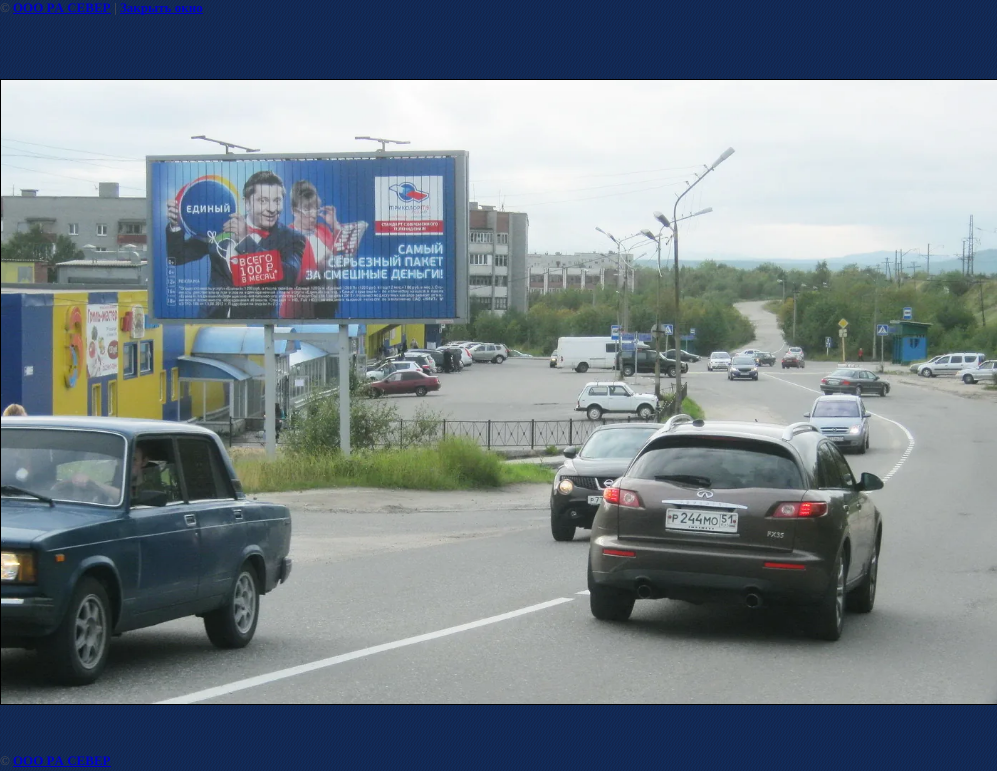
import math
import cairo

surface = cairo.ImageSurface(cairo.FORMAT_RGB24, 997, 771)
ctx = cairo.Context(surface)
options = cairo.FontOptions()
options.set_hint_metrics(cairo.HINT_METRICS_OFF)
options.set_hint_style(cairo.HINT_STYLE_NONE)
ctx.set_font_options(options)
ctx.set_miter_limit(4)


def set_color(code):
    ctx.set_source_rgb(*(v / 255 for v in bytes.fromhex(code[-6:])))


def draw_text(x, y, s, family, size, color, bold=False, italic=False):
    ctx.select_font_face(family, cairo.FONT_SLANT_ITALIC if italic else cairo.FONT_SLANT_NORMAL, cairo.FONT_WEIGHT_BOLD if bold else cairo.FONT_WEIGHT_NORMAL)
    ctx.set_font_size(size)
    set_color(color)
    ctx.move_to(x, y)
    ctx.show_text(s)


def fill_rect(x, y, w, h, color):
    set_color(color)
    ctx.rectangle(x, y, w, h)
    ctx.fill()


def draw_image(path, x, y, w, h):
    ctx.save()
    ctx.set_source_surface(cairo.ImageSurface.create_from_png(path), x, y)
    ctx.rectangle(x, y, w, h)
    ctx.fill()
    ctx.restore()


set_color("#ffffff")
ctx.paint()
draw_image("assets/img1.png", 0, 0, 997, 771)
draw_text(0, 12, "©", "Liberation Serif", 13, "#515151")
draw_text(13, 12, "ООО РА СЕВЕР", "Liberation Serif", 13, "#0000cc", bold=True)
fill_rect(13, 13, 98, 1, "#0000cc")
draw_text(114, 12, "|", "Liberation Serif", 13, "#515151")
fill_rect(120, 13, 83, 1, "#0000cc")
draw_text(120, 12, "Закрыть окно", "Liberation Serif", 13, "#0000cc", bold=True)
ctx.rectangle(0.5, 79.5, 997, 625)
set_color("#000000")
ctx.set_line_width(1)
ctx.stroke()
draw_image("assets/img2.png", 1, 80, 996, 624)
draw_text(0, 765, "©", "Liberation Serif", 13, "#515151")
draw_text(13, 765, "ООО РА СЕВЕР", "Liberation Serif", 13, "#0000cc", bold=True)
fill_rect(13, 766, 98, 1, "#0000cc")
surface.write_to_png("output.png")
